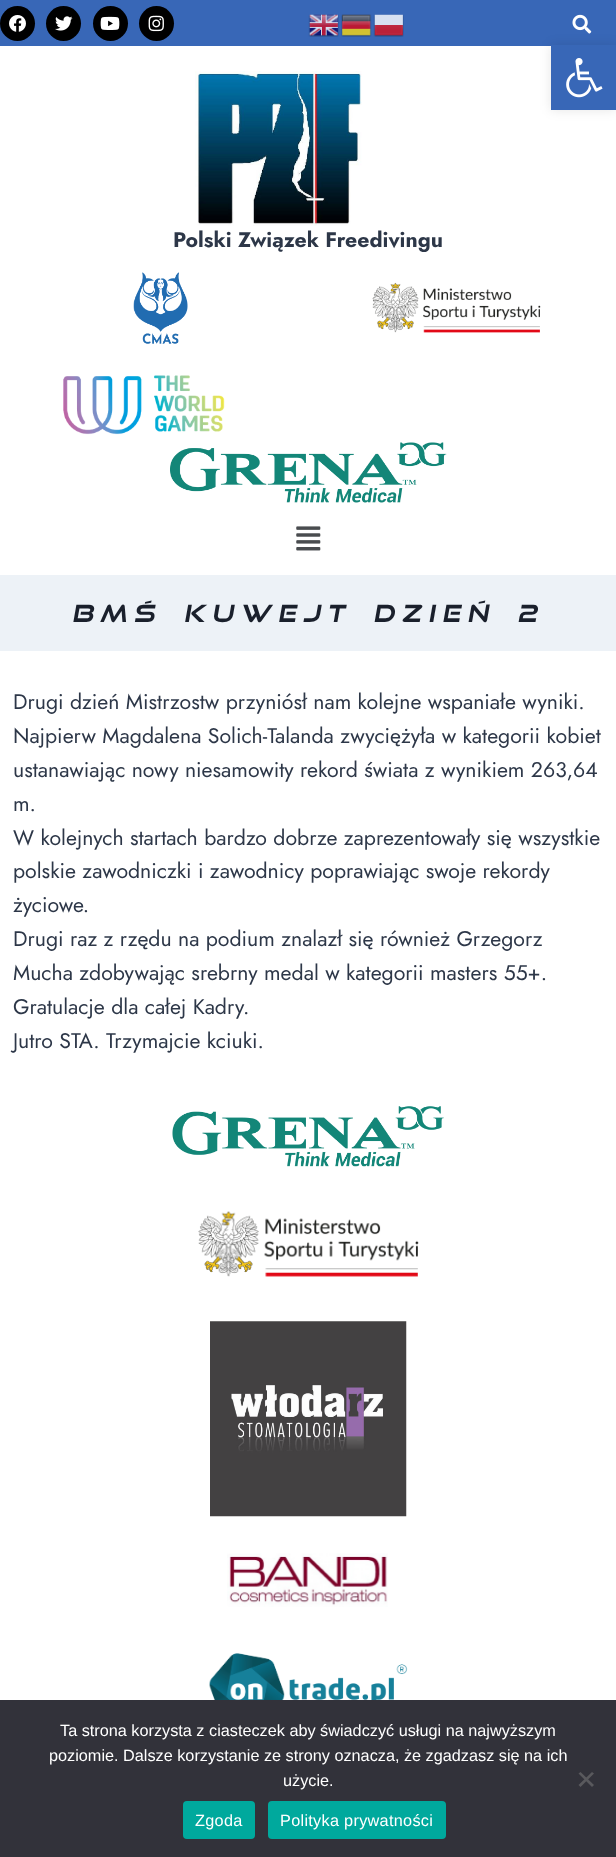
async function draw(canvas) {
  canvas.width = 616
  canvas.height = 1857
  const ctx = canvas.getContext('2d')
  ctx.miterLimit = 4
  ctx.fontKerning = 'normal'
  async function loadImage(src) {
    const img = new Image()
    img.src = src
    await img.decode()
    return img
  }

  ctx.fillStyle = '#fff'
  ctx.fillRect(0, 0, 616, 1857)
  ctx.fillStyle = '#3867b7'
  ctx.fillRect(0, 0, 616, 46)
  ctx.drawImage(await loadImage('image8.png'), 572, 14, 20, 20)
  ctx.fillStyle = '#0000001a'
  ctx.filter = 'blur(6px)'
  ctx.beginPath()
  ctx.rect(551, 45, 65, 65)
  ctx.fill()
  ctx.filter = 'none'
  ctx.fillStyle = '#3867b7'
  ctx.fillRect(551, 45, 65, 65)
  ctx.drawImage(await loadImage('image0.png'), 566, 58, 37, 40)
  ctx.fillStyle = '#000'
  ctx.beginPath()
  ctx.arc(17.5, 23.5, 17.5, 0, 2 * Math.PI)
  ctx.fill()
  ctx.drawImage(await loadImage('image1.png'), 9, 15, 17, 17)
  ctx.beginPath()
  ctx.arc(63.5, 23.5, 17.5, 0, 2 * Math.PI)
  ctx.fill()
  ctx.drawImage(await loadImage('image2.png'), 55, 16, 18, 15)
  ctx.beginPath()
  ctx.arc(110.5, 23.5, 17.5, 0, 2 * Math.PI)
  ctx.fill()
  ctx.drawImage(await loadImage('image3.png'), 100, 16, 20, 14)
  ctx.beginPath()
  ctx.arc(156.5, 23.5, 17.5, 0, 2 * Math.PI)
  ctx.fill()
  ctx.drawImage(await loadImage('image4.png'), 148, 15, 16, 17)
  ctx.drawImage(await loadImage('image5.png'), 308, 14, 31, 23)
  ctx.drawImage(await loadImage('image6.png'), 341, 14, 31, 23)
  ctx.drawImage(await loadImage('image7.png'), 373, 14, 31, 23)
  ctx.drawImage(await loadImage('image9.png'), 195, 71, 167, 155)
  ctx.font = 'bold 21.25px Jost'
  ctx.fillStyle = '#2d3748'
  ctx.fillText('Polski Związek Freedivingu', 173, 247)
  ctx.drawImage(await loadImage('image10.png'), 133, 272, 55, 72)
  ctx.drawImage(await loadImage('image11.png'), 372, 282, 169, 51)
  ctx.drawImage(await loadImage('image12.png'), 63, 375, 162, 60)
  ctx.drawImage(await loadImage('image13.png'), 170, 442, 277, 61)
  ctx.drawImage(await loadImage('image14.png'), 296, 526, 25, 25)
  ctx.fillStyle = '#edf2f7'
  ctx.fillRect(0, 575, 616, 76)
  ctx.letterSpacing = '7.25px'
  ctx.wordSpacing = '7.5px'
  ctx.font = 'italic bold 23.75px "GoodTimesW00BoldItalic"'
  ctx.fillStyle = '#1a202c'
  ctx.fillText('BMŚ Kuwejt Dzień 2', 72, 622)
  ctx.letterSpacing = '0px'
  ctx.wordSpacing = '0px'
  ctx.font = '21.25px Jost'
  ctx.fillStyle = '#2d3748'
  ctx.fillText('Drugi dzień Mistrzostw przyniósł nam kolejne wspaniałe wyniki.', 13, 709)
  ctx.fillText('Najpierw Magdalena Solich-Talanda zwyciężyła w kategorii kobiet', 13, 743)
  ctx.fillText('ustanawiając nowy niesamowity rekord świata z wynikiem 263,64', 13, 777)
  ctx.fillText('m.', 13, 811)
  ctx.fillText('W kolejnych startach bardzo dobrze zaprezentowały się wszystkie', 13, 845)
  ctx.fillText('polskie zawodniczki i zawodnicy poprawiając swoje rekordy', 13, 878)
  ctx.fillText('życiowe.', 13, 912)
  ctx.fillText('Drugi raz z rzędu na podium znalazł się również Grzegorz', 13, 946)
  ctx.fillText('Mucha zdobywając srebrny medal w kategorii masters 55+.', 13, 980)
  ctx.fillText('Gratulacje dla całej Kadry.', 13, 1014)
  ctx.fillText('Jutro STA. Trzymajcie kciuki.', 13, 1048)
  ctx.drawImage(await loadImage('image15.png'), 172, 1106, 272, 61)
  ctx.drawImage(await loadImage('image16.png'), 198, 1211, 221, 66)
  ctx.drawImage(await loadImage('image17.png'), 210, 1321, 197, 196)
  ctx.drawImage(await loadImage('image18.png'), 227, 1553, 161, 54)
  ctx.drawImage(await loadImage('image19.png'), 209, 1653, 199, 47)
  ctx.fillStyle = '#32323a'
  ctx.fillRect(0, 1700, 616, 157)
  ctx.font = '16.25px Liberation Sans'
  ctx.fillStyle = '#fff'
  ctx.fillText('Ta strona korzysta z ciasteczek aby świadczyć usługi na najwyższym', 60, 1736)
  ctx.fillText('poziomie. Dalsze korzystanie ze strony oznacza, że zgadzasz się na ich', 49, 1761)
  ctx.fillText('użycie.', 283, 1786)
  ctx.fillStyle = '#59595d'
  ctx.beginPath()
  ctx.moveTo(592, 1772)
  ctx.lineTo(594, 1773.5)
  ctx.lineTo(580.5, 1787)
  ctx.lineTo(578.5, 1785)
  ctx.closePath()
  ctx.fill()
  ctx.beginPath()
  ctx.moveTo(578.5, 1773.5)
  ctx.lineTo(580.5, 1772)
  ctx.lineTo(594, 1785)
  ctx.lineTo(592, 1787)
  ctx.closePath()
  ctx.fill()
  ctx.fillStyle = '#00a99d'
  ctx.beginPath()
  ctx.roundRect(183, 1801, 72, 38, 4)
  ctx.fill()
  ctx.letterSpacing = '0.3px'
  ctx.fillStyle = '#fff'
  ctx.fillText('Zgoda', 195, 1826)
  ctx.fillStyle = '#00a99d'
  ctx.beginPath()
  ctx.roundRect(268, 1801, 178, 38, 4)
  ctx.fill()
  ctx.fillStyle = '#fff'
  ctx.fillText('Polityka prywatności', 280, 1826)
}

draw(document.querySelector('canvas'))
